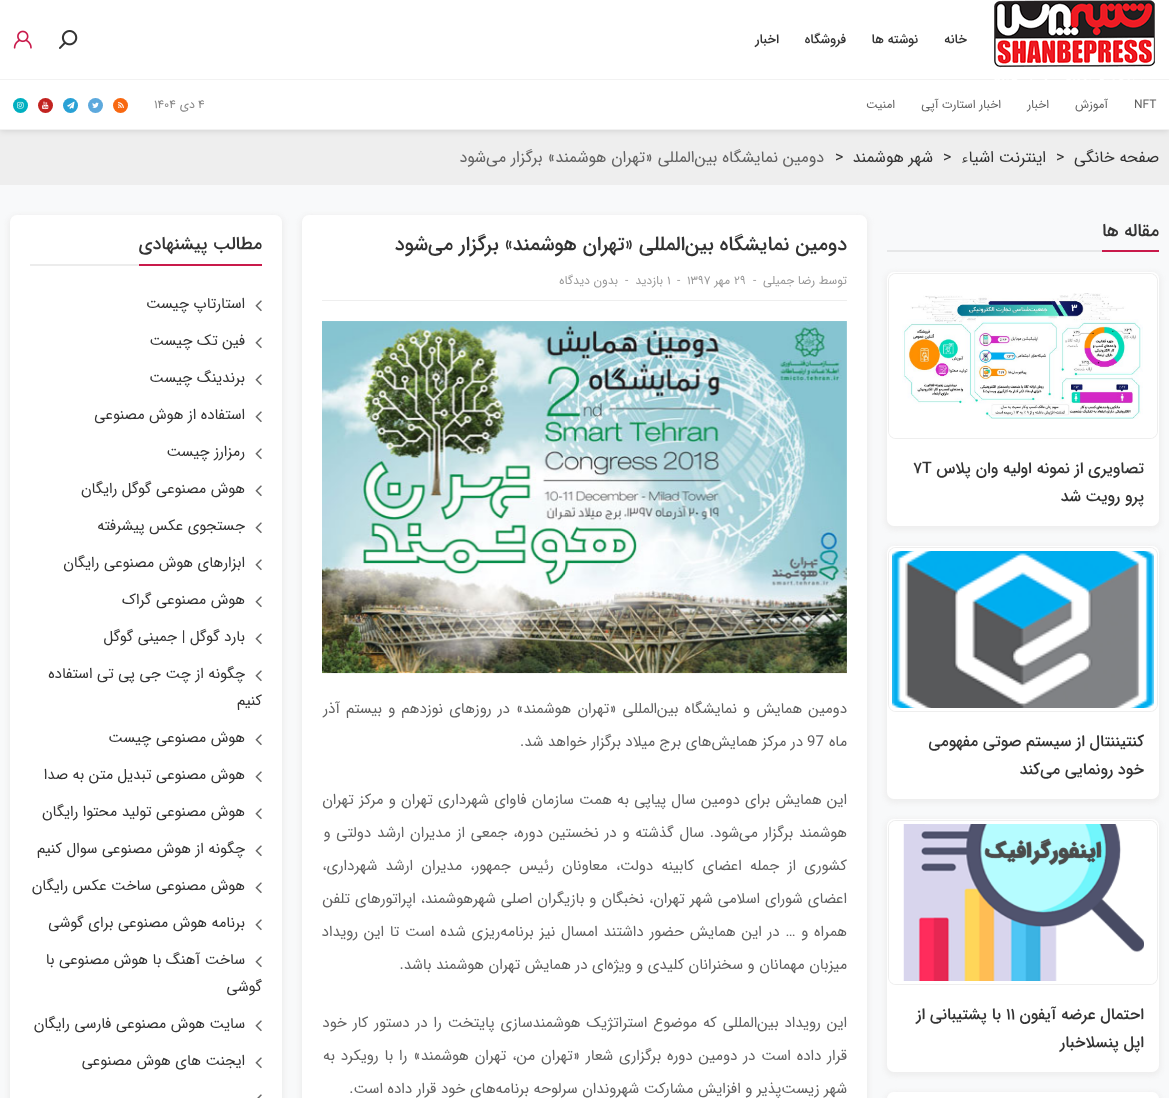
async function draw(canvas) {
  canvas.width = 1169
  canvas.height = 1098
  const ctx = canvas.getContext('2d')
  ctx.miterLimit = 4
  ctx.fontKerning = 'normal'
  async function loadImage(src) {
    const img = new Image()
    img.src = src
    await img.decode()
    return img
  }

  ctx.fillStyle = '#f8f9fa'
  ctx.fillRect(0, 0, 1169, 1098)
  ctx.fillStyle = '#eee'
  ctx.fillRect(0, 130, 1169, 55)
  ctx.fillStyle = '#00000026'
  ctx.filter = 'blur(3.5px)'
  ctx.beginPath()
  ctx.rect(0, 0, 1169, 130)
  ctx.fill()
  ctx.filter = 'none'
  ctx.fillStyle = '#fff'
  ctx.fillRect(0, 0, 1169, 79)
  ctx.fillStyle = '#f2f2f2'
  ctx.fillRect(0, 79, 1169, 1)
  ctx.drawImage(await loadImage('image0.png'), 994, 0, 161, 80)
  ctx.direction = 'rtl'
  ctx.font = '500 13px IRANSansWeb'
  ctx.fillStyle = '#333'
  ctx.fillText('خانه', 967, 43)
  ctx.fillText('نوشته ها', 918, 43)
  ctx.fillText('فروشگاه', 846, 43)
  ctx.fillText('اخبار', 779, 43)
  ctx.drawImage(await loadImage('image1.png'), 59, 30, 19, 19)
  ctx.drawImage(await loadImage('image2.png'), 13, 30, 19, 19)
  ctx.fillStyle = '#fff'
  ctx.fillRect(0, 80, 1169, 49)
  ctx.fillStyle = '#f2f2f2'
  ctx.fillRect(0, 129, 1169, 1)
  ctx.direction = 'ltr'
  ctx.font = '12px IRANSansWeb'
  ctx.fillStyle = '#626262'
  ctx.fillText('NFT', 1134, 108)
  ctx.direction = 'rtl'
  ctx.fillText('آموزش', 1108, 108)
  ctx.fillText('اخبار', 1049, 108)
  ctx.fillText('اخبار استارت آپی', 1001, 108)
  ctx.fillText('امنیت', 895, 108)
  ctx.direction = 'ltr'
  ctx.fillStyle = '#858585'
  ctx.fillText('۴', 198, 108)
  ctx.direction = 'rtl'
  ctx.fillText('دی', 195, 108)
  ctx.direction = 'ltr'
  ctx.fillText('۱۴۰۴', 154, 108)
  ctx.fillStyle = '#f86811'
  ctx.beginPath()
  ctx.arc(120.5, 105.5, 7.5, 0, 2 * Math.PI)
  ctx.fill()
  ctx.drawImage(await loadImage('image3.png'), 118, 102, 6, 6)
  ctx.fillStyle = '#5da9dd'
  ctx.beginPath()
  ctx.arc(95.5, 105.5, 7.5, 0, 2 * Math.PI)
  ctx.fill()
  ctx.drawImage(await loadImage('image4.png'), 92, 102, 7, 6)
  ctx.fillStyle = '#29a1d5'
  ctx.beginPath()
  ctx.arc(70.5, 105.5, 7.5, 0, 2 * Math.PI)
  ctx.fill()
  ctx.drawImage(await loadImage('image5.png'), 67, 101, 8, 8)
  ctx.fillStyle = '#c22320'
  ctx.beginPath()
  ctx.arc(45.5, 105.5, 7.5, 0, 2 * Math.PI)
  ctx.fill()
  ctx.drawImage(await loadImage('image6.png'), 42, 101, 7, 9)
  ctx.fillStyle = '#00afc0'
  ctx.beginPath()
  ctx.arc(20.5, 105.5, 7.5, 0, 2 * Math.PI)
  ctx.fill()
  ctx.drawImage(await loadImage('image7.png'), 17, 101, 7, 8)
  ctx.direction = 'rtl'
  ctx.font = '16px IRANSansWeb'
  ctx.fillStyle = '#333'
  ctx.fillText('صفحه خانگی', 1159, 162)
  ctx.direction = 'ltr'
  ctx.fillText('>', 1056, 162)
  ctx.direction = 'rtl'
  ctx.fillText('اینترنت اشیاء', 1046, 162)
  ctx.direction = 'ltr'
  ctx.fillText('>', 943, 162)
  ctx.direction = 'rtl'
  ctx.fillText('شهر هوشمند', 933, 162)
  ctx.direction = 'ltr'
  ctx.fillText('>', 835, 162)
  ctx.direction = 'rtl'
  ctx.fillStyle = '#626262'
  ctx.fillText('دومین نمایشگاه بین‌المللی «تهران هوشمند» برگزار می‌شود', 824, 162)
  ctx.fillStyle = '#c91a4b'
  ctx.fillRect(1102, 250, 57, 2)
  ctx.font = '500 18px IRANSansWeb'
  ctx.fillStyle = '#333'
  ctx.fillText('مقاله ها', 1159, 236)
  ctx.fillStyle = '#e6e7e8'
  ctx.fillRect(887, 250, 215, 2)
  ctx.fillStyle = '#eee'
  ctx.filter = 'blur(2.5px)'
  ctx.beginPath()
  ctx.roundRect(885, 272, 276, 258, 9)
  ctx.fill()
  ctx.filter = 'none'
  ctx.fillStyle = '#fff'
  ctx.beginPath()
  ctx.roundRect(887, 272, 272, 254, 7)
  ctx.fill()
  ctx.save()
  ctx.beginPath()
  ctx.moveTo(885, 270)
  ctx.lineTo(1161, 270)
  ctx.lineTo(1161, 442)
  ctx.lineTo(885, 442)
  ctx.closePath()
  ctx.moveTo(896, 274)
  ctx.lineTo(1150, 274)
  ctx.bezierCurveTo(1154, 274, 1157, 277, 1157, 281)
  ctx.lineTo(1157, 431)
  ctx.bezierCurveTo(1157, 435, 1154, 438, 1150, 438)
  ctx.lineTo(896, 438)
  ctx.bezierCurveTo(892, 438, 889, 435, 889, 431)
  ctx.lineTo(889, 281)
  ctx.bezierCurveTo(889, 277, 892, 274, 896, 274)
  ctx.closePath()
  ctx.clip('evenodd')
  ctx.fillStyle = '#eee'
  ctx.filter = 'blur(0.5px)'
  ctx.beginPath()
  ctx.roundRect(888, 273, 270, 166, 8)
  ctx.fill()
  ctx.filter = 'none'
  ctx.restore()
  ctx.beginPath()
  ctx.roundRect(890.5, 275.5, 265, 161, 5.5)
  ctx.strokeStyle = '#fff'
  ctx.lineWidth = 3
  ctx.stroke()
  ctx.drawImage(await loadImage('image8.png'), 902, 293, 241, 126)
  ctx.font = '500 16px IRANSansWeb'
  ctx.fillStyle = '#333'
  ctx.fillText('تصاویری از نمونه اولیه وان پلاس', 1144, 473)
  ctx.direction = 'ltr'
  ctx.fillText('۷T', 913, 473)
  ctx.direction = 'rtl'
  ctx.fillText('پرو رویت شد', 1144, 501)
  ctx.fillStyle = '#eee'
  ctx.filter = 'blur(2.5px)'
  ctx.beginPath()
  ctx.roundRect(885, 546, 276, 257, 9)
  ctx.fill()
  ctx.filter = 'none'
  ctx.fillStyle = '#fff'
  ctx.beginPath()
  ctx.roundRect(887, 546, 272, 253, 7)
  ctx.fill()
  ctx.save()
  ctx.beginPath()
  ctx.moveTo(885, 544)
  ctx.lineTo(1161, 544)
  ctx.lineTo(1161, 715)
  ctx.lineTo(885, 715)
  ctx.closePath()
  ctx.moveTo(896, 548)
  ctx.lineTo(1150, 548)
  ctx.bezierCurveTo(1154, 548, 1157, 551, 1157, 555)
  ctx.lineTo(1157, 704)
  ctx.bezierCurveTo(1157, 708, 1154, 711, 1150, 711)
  ctx.lineTo(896, 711)
  ctx.bezierCurveTo(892, 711, 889, 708, 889, 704)
  ctx.lineTo(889, 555)
  ctx.bezierCurveTo(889, 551, 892, 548, 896, 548)
  ctx.closePath()
  ctx.clip('evenodd')
  ctx.fillStyle = '#eee'
  ctx.filter = 'blur(0.5px)'
  ctx.beginPath()
  ctx.roundRect(888, 547, 270, 165, 8)
  ctx.fill()
  ctx.filter = 'none'
  ctx.restore()
  ctx.beginPath()
  ctx.roundRect(890.5, 549.5, 265, 160, 5.5)
  ctx.stroke()
  ctx.drawImage(await loadImage('image9.png'), 892, 551, 262, 157)
  ctx.fillStyle = '#333'
  ctx.fillText('کنتیننتال از سیستم صوتی مفهومی', 1144, 746)
  ctx.fillText('خود رونمایی می‌کند', 1144, 774)
  ctx.fillStyle = '#eee'
  ctx.filter = 'blur(2.5px)'
  ctx.beginPath()
  ctx.roundRect(885, 819, 276, 257, 9)
  ctx.fill()
  ctx.filter = 'none'
  ctx.fillStyle = '#fff'
  ctx.beginPath()
  ctx.roundRect(887, 819, 272, 253, 7)
  ctx.fill()
  ctx.save()
  ctx.beginPath()
  ctx.moveTo(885, 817)
  ctx.lineTo(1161, 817)
  ctx.lineTo(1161, 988)
  ctx.lineTo(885, 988)
  ctx.closePath()
  ctx.moveTo(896, 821)
  ctx.lineTo(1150, 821)
  ctx.bezierCurveTo(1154, 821, 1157, 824, 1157, 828)
  ctx.lineTo(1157, 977)
  ctx.bezierCurveTo(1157, 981, 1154, 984, 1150, 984)
  ctx.lineTo(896, 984)
  ctx.bezierCurveTo(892, 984, 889, 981, 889, 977)
  ctx.lineTo(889, 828)
  ctx.bezierCurveTo(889, 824, 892, 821, 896, 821)
  ctx.closePath()
  ctx.clip('evenodd')
  ctx.fillStyle = '#eee'
  ctx.filter = 'blur(0.5px)'
  ctx.beginPath()
  ctx.roundRect(888, 820, 270, 165, 8)
  ctx.fill()
  ctx.filter = 'none'
  ctx.restore()
  ctx.beginPath()
  ctx.roundRect(890.5, 822.5, 265, 160, 5.5)
  ctx.stroke()
  ctx.drawImage(await loadImage('image10.png'), 903, 824, 241, 157)
  ctx.fillStyle = '#333'
  ctx.fillText('احتمال عرضه آیفون', 1144, 1019)
  ctx.direction = 'ltr'
  ctx.fillText('۱۱', 1006, 1019)
  ctx.direction = 'rtl'
  ctx.fillText('با پشتیبانی از', 1001, 1019)
  ctx.fillText('اپل پنسلاخبار', 1144, 1047)
  ctx.fillStyle = '#eee'
  ctx.filter = 'blur(2.5px)'
  ctx.beginPath()
  ctx.roundRect(885, 1092, 276, 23, 9)
  ctx.fill()
  ctx.filter = 'none'
  ctx.fillStyle = '#fff'
  ctx.beginPath()
  ctx.roundRect(887, 1092, 272, 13, 7)
  ctx.fill()
  ctx.fillStyle = '#eee'
  ctx.filter = 'blur(2.5px)'
  ctx.beginPath()
  ctx.roundRect(300, 215, 569, 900, 9)
  ctx.fill()
  ctx.filter = 'none'
  ctx.fillStyle = '#fff'
  ctx.beginPath()
  ctx.roundRect(302, 215, 565, 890, 7)
  ctx.fill()
  ctx.fillStyle = '#eee'
  ctx.fillRect(322, 300, 525, 1)
  ctx.font = '500 20px IRANSansWeb'
  ctx.fillStyle = '#333'
  ctx.fillText('دومین نمایشگاه بین‌المللی «تهران هوشمند» برگزار می‌شود', 847, 250)
  ctx.font = '12px IRANSansWeb'
  ctx.fillStyle = '#999'
  ctx.fillText('توسط', 847, 284)
  ctx.fillText('رضا جميلی', 815, 284)
  ctx.direction = 'ltr'
  ctx.fillText('-', 753, 284)
  ctx.fillText('۲۹', 734, 284)
  ctx.direction = 'rtl'
  ctx.fillText('مهر', 730, 284)
  ctx.direction = 'ltr'
  ctx.fillText('۱۳۹۷', 687, 284)
  ctx.fillText('-', 677, 284)
  ctx.fillText('۱', 667, 284)
  ctx.direction = 'rtl'
  ctx.fillText('بازدید', 663, 284)
  ctx.direction = 'ltr'
  ctx.fillText('-', 625, 284)
  ctx.direction = 'rtl'
  ctx.fillText('بدون دیدگاه', 618, 284)
  ctx.drawImage(await loadImage('image11.png'), 322, 321, 525, 353)
  ctx.wordSpacing = '1.6px'
  ctx.font = '15px IRANSansWeb'
  ctx.fillStyle = '#626262'
  ctx.fillText('دومین همایش و نمایشگاه بین‌المللی «تهران هوشمند» در روزهای نوزدهم و بیستم آذر', 847, 713)
  ctx.wordSpacing = '0px'
  ctx.fillText('ماه', 847, 746)
  ctx.direction = 'ltr'
  ctx.fillText('97', 807, 746)
  ctx.direction = 'rtl'
  ctx.fillText('در مرکز همایش‌های برج میلاد برگزار خواهد شد.', 803, 746)
  ctx.wordSpacing = '0.75px'
  ctx.fillText('این همایش برای دومین سال پیاپی به همت سازمان فاوای شهرداری تهران و مرکز تهران', 847, 804)
  ctx.wordSpacing = '1.25px'
  ctx.fillText('هوشمند برگزار می‌شود. سال گذشته و در نخستین دوره، جمعی از مدیران ارشد دولتی و', 847, 837)
  ctx.wordSpacing = '3.75px'
  ctx.fillText('کشوری از جمله اعضای کابینه دولت، معاونان رئیس جمهور، ‌مدیران ارشد شهرداری،', 847, 870)
  ctx.wordSpacing = '0.5px'
  ctx.fillText('اعضای شورای اسلامی شهر تهران، نخبگان و بازیگران اصلی شهرهوشمند، اپراتورهای تلفن', 847, 903)
  ctx.wordSpacing = '1.25px'
  ctx.fillText('همراه و … در این همایش حضور داشتند امسال نیز برنامه‌ریزی شده است تا این رویداد', 847, 936)
  ctx.wordSpacing = '0px'
  ctx.fillText('میزبان مهمانان و سخنرانان کلیدی و ویژه‌ای در همایش تهران هوشمند باشد.', 847, 969)
  ctx.wordSpacing = '1.4px'
  ctx.fillText('این رویداد بین‌المللی که موضوع استراتژیک هوشمندسازی پایتخت را در دستور کار خود', 847, 1027)
  ctx.fillText('قرار داده است در دومین دوره برگزاری شعار «تهران من، تهران هوشمند» را با رویکرد به', 847, 1060)
  ctx.wordSpacing = '0px'
  ctx.fillText('شهر زیست‌پذیر و افزایش مشارکت شهروندان سرلوحه برنامه‌های خود قرار داده است.', 847, 1093)
  ctx.fillStyle = '#eee'
  ctx.filter = 'blur(2.5px)'
  ctx.beginPath()
  ctx.roundRect(8, 215, 276, 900, 9)
  ctx.fill()
  ctx.filter = 'none'
  ctx.fillStyle = '#fff'
  ctx.beginPath()
  ctx.roundRect(10, 215, 272, 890, 7)
  ctx.fill()
  ctx.fillStyle = '#c91a4b'
  ctx.fillRect(139, 264, 123, 2)
  ctx.font = '500 18px IRANSansWeb'
  ctx.fillStyle = '#333'
  ctx.fillText('مطالب پیشنهادی', 262, 249)
  ctx.fillStyle = '#ececec'
  ctx.fillRect(30, 264, 109, 2)
  ctx.drawImage(await loadImage('image12.png'), 255, 300, 7, 12)
  ctx.font = '15px IRANSansWeb'
  ctx.fillStyle = '#333'
  ctx.fillText('استارتاپ چیست', 245, 308)
  ctx.drawImage(await loadImage('image12.png'), 255, 337, 7, 12)
  ctx.fillText('فین تک چیست', 245, 345)
  ctx.drawImage(await loadImage('image12.png'), 255, 374, 7, 12)
  ctx.fillText('برندینگ چیست', 245, 382)
  ctx.drawImage(await loadImage('image12.png'), 255, 411, 7, 12)
  ctx.fillText('استفاده از هوش مصنوعی', 245, 419)
  ctx.drawImage(await loadImage('image12.png'), 255, 448, 7, 12)
  ctx.fillText('رمزارز چیست', 245, 456)
  ctx.drawImage(await loadImage('image12.png'), 255, 485, 7, 12)
  ctx.fillText('هوش مصنوعی گوگل رایگان', 245, 493)
  ctx.drawImage(await loadImage('image12.png'), 255, 522, 7, 12)
  ctx.fillText('جستجوی عکس پیشرفته', 245, 530)
  ctx.drawImage(await loadImage('image12.png'), 255, 559, 7, 12)
  ctx.fillText('ابزارهای هوش مصنوعی رایگان', 245, 567)
  ctx.drawImage(await loadImage('image12.png'), 255, 596, 7, 12)
  ctx.fillText('هوش مصنوعی گراک', 245, 604)
  ctx.drawImage(await loadImage('image12.png'), 255, 633, 7, 12)
  ctx.fillText('بارد گوگل | جمینی گوگل', 245, 641)
  ctx.drawImage(await loadImage('image12.png'), 255, 670, 7, 12)
  ctx.fillText('چگونه از چت جی پی تی استفاده', 245, 678)
  ctx.fillText('کنیم', 262, 705)
  ctx.drawImage(await loadImage('image12.png'), 255, 734, 7, 12)
  ctx.fillText('هوش مصنوعی چیست', 245, 742)
  ctx.drawImage(await loadImage('image12.png'), 255, 771, 7, 12)
  ctx.fillText('هوش مصنوعی تبدیل متن به صدا', 245, 779)
  ctx.drawImage(await loadImage('image12.png'), 255, 808, 7, 12)
  ctx.fillText('هوش مصنوعی تولید محتوا رایگان', 245, 816)
  ctx.drawImage(await loadImage('image12.png'), 255, 845, 7, 12)
  ctx.fillText('چگونه از هوش مصنوعی سوال کنیم', 245, 853)
  ctx.drawImage(await loadImage('image12.png'), 255, 882, 7, 12)
  ctx.fillText('هوش مصنوعی ساخت عکس رایگان', 245, 890)
  ctx.drawImage(await loadImage('image12.png'), 255, 919, 7, 12)
  ctx.fillText('برنامه هوش مصنوعی برای گوشی', 245, 927)
  ctx.drawImage(await loadImage('image12.png'), 255, 956, 7, 12)
  ctx.fillText('ساخت آهنگ با هوش مصنوعی با', 245, 964)
  ctx.fillText('گوشی', 262, 991)
  ctx.drawImage(await loadImage('image12.png'), 255, 1020, 7, 12)
  ctx.fillText('سایت هوش مصنوعی فارسی رایگان', 245, 1028)
  ctx.drawImage(await loadImage('image12.png'), 255, 1057, 7, 12)
  ctx.fillText('ایجنت های هوش مصنوعی', 245, 1065)
  ctx.drawImage(await loadImage('image13.png'), 257, 1094, 5, 4)
}

draw(document.querySelector('canvas'))
